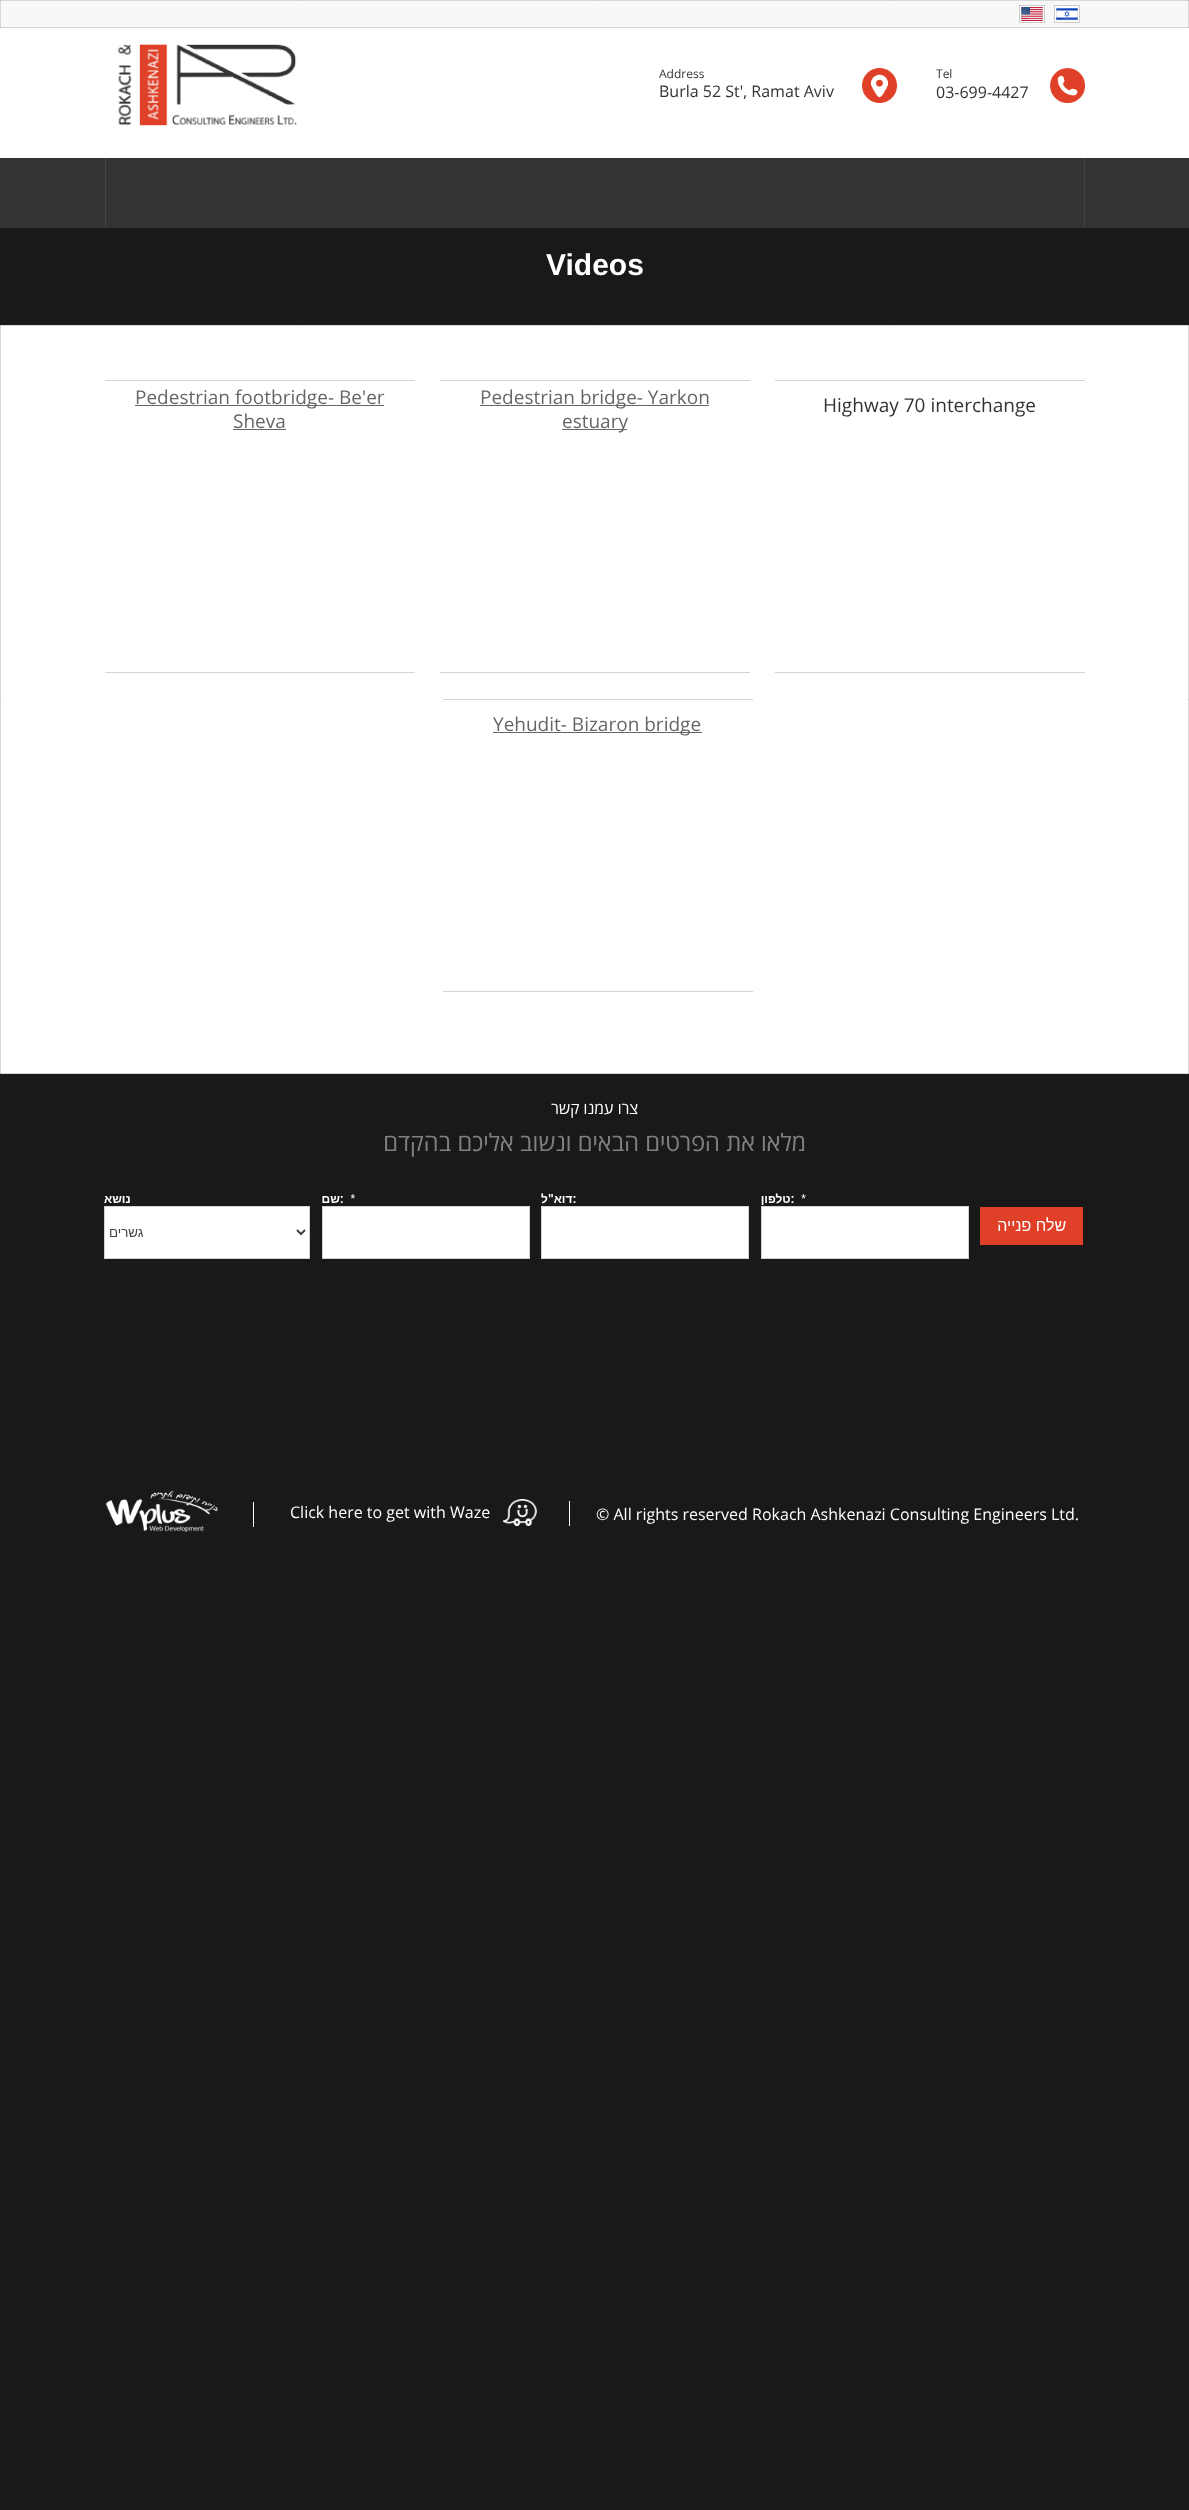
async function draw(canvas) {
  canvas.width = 1189
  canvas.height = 2510
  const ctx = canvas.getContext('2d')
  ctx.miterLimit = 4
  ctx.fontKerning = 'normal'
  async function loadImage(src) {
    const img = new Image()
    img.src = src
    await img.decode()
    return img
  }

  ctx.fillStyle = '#191919'
  ctx.fillRect(0, 0, 1189, 2510)
  ctx.fillStyle = '#f8f8f8'
  ctx.beginPath()
  ctx.rect(0.5, 0.5, 1188, 27)
  ctx.fill()
  ctx.strokeStyle = '#d9d9d9'
  ctx.stroke()
  ctx.drawImage(await loadImage('image0.png'), 1019, 5, 26, 18)
  ctx.drawImage(await loadImage('image1.png'), 1054, 5, 26, 18)
  ctx.fillStyle = '#fff'
  ctx.fillRect(0, 28, 1189, 130)
  ctx.drawImage(await loadImage('image2.png'), 117, 44, 180, 82)
  ctx.font = '12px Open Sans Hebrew'
  ctx.fillStyle = '#333'
  ctx.fillText('Address', 659, 78)
  ctx.font = '16px Open Sans Hebrew'
  ctx.fillText('Burla 52 St\', Ramat Aviv', 659, 97)
  ctx.drawImage(await loadImage('image3.png'), 862, 68, 35, 35)
  ctx.font = '12px Open Sans Hebrew'
  ctx.fillText('Tel', 936, 78)
  ctx.font = '16px Open Sans Hebrew'
  ctx.fillText('03-699-4427', 936, 98)
  ctx.drawImage(await loadImage('image4.png'), 1050, 68, 35, 35)
  ctx.fillRect(0, 158, 1189, 70)
  ctx.fillStyle = '#434343'
  ctx.fillRect(105, 158, 1, 70)
  ctx.fillRect(1084, 158, 1, 70)
  ctx.font = 'bold 30px Liberation Sans'
  ctx.fillStyle = '#fff'
  ctx.fillText('Videos', 546, 275)
  ctx.beginPath()
  ctx.rect(0.5, 325.5, 1188, 748)
  ctx.fill()
  ctx.stroke()
  ctx.fillStyle = '#d3d3d3'
  ctx.fillRect(105, 380, 310, 1)
  ctx.fillRect(105, 672, 310, 1)
  ctx.fillStyle = '#666'
  ctx.fillRect(135, 405, 249, 1)
  ctx.font = '19px Open Sans Hebrew'
  ctx.fillText('Pedestrian footbridge- Be\'er', 135, 404)
  ctx.fillText('Sheva', 233, 428)
  ctx.fillRect(233, 429, 53, 1)
  ctx.fillStyle = '#d3d3d3'
  ctx.fillRect(440, 380, 310, 1)
  ctx.fillRect(440, 672, 310, 1)
  ctx.fillStyle = '#666'
  ctx.fillRect(480, 405, 229, 1)
  ctx.fillText('Pedestrian bridge- Yarkon', 480, 404)
  ctx.fillRect(562, 429, 65, 1)
  ctx.fillText('estuary', 562, 428)
  ctx.fillStyle = '#d3d3d3'
  ctx.fillRect(775, 380, 310, 1)
  ctx.fillRect(775, 672, 310, 1)
  ctx.fillStyle = '#333'
  ctx.fillText('Highway 70 interchange', 823, 412)
  ctx.fillStyle = '#d3d3d3'
  ctx.fillRect(443, 699, 310, 1)
  ctx.fillRect(443, 991, 310, 1)
  ctx.fillStyle = '#666'
  ctx.fillRect(493, 732, 209, 1)
  ctx.fillText('Yehudit- Bizaron bridge', 493, 731)
  ctx.direction = 'rtl'
  ctx.font = '16px Open Sans Hebrew'
  ctx.fillStyle = '#fff'
  ctx.fillText('צרו עמנו קשר', 638, 1114)
  ctx.font = '24px Open Sans Hebrew'
  ctx.fillStyle = '#808080'
  ctx.fillText('מלאו את הפרטים הבאים ונשוב אליכם בהקדם', 806, 1151)
  ctx.drawImage(await loadImage('image5.png'), 104, 1193, 979, 66)
  ctx.drawImage(await loadImage('image6.png'), 105, 1490, 113, 42)
  ctx.fillStyle = '#fff'
  ctx.fillRect(253, 1502, 1, 25)
  ctx.direction = 'ltr'
  ctx.font = '16px Open Sans Hebrew'
  ctx.fillText('Click here to get with Waze', 290, 1518)
  ctx.drawImage(await loadImage('image7.png'), 503, 1499, 34, 27)
  ctx.fillRect(569, 1501, 1, 25)
  ctx.fillText('© All rights reserved Rokach Ashkenazi Consulting Engineers Ltd.', 596, 1520)
}

draw(document.querySelector('canvas'))
